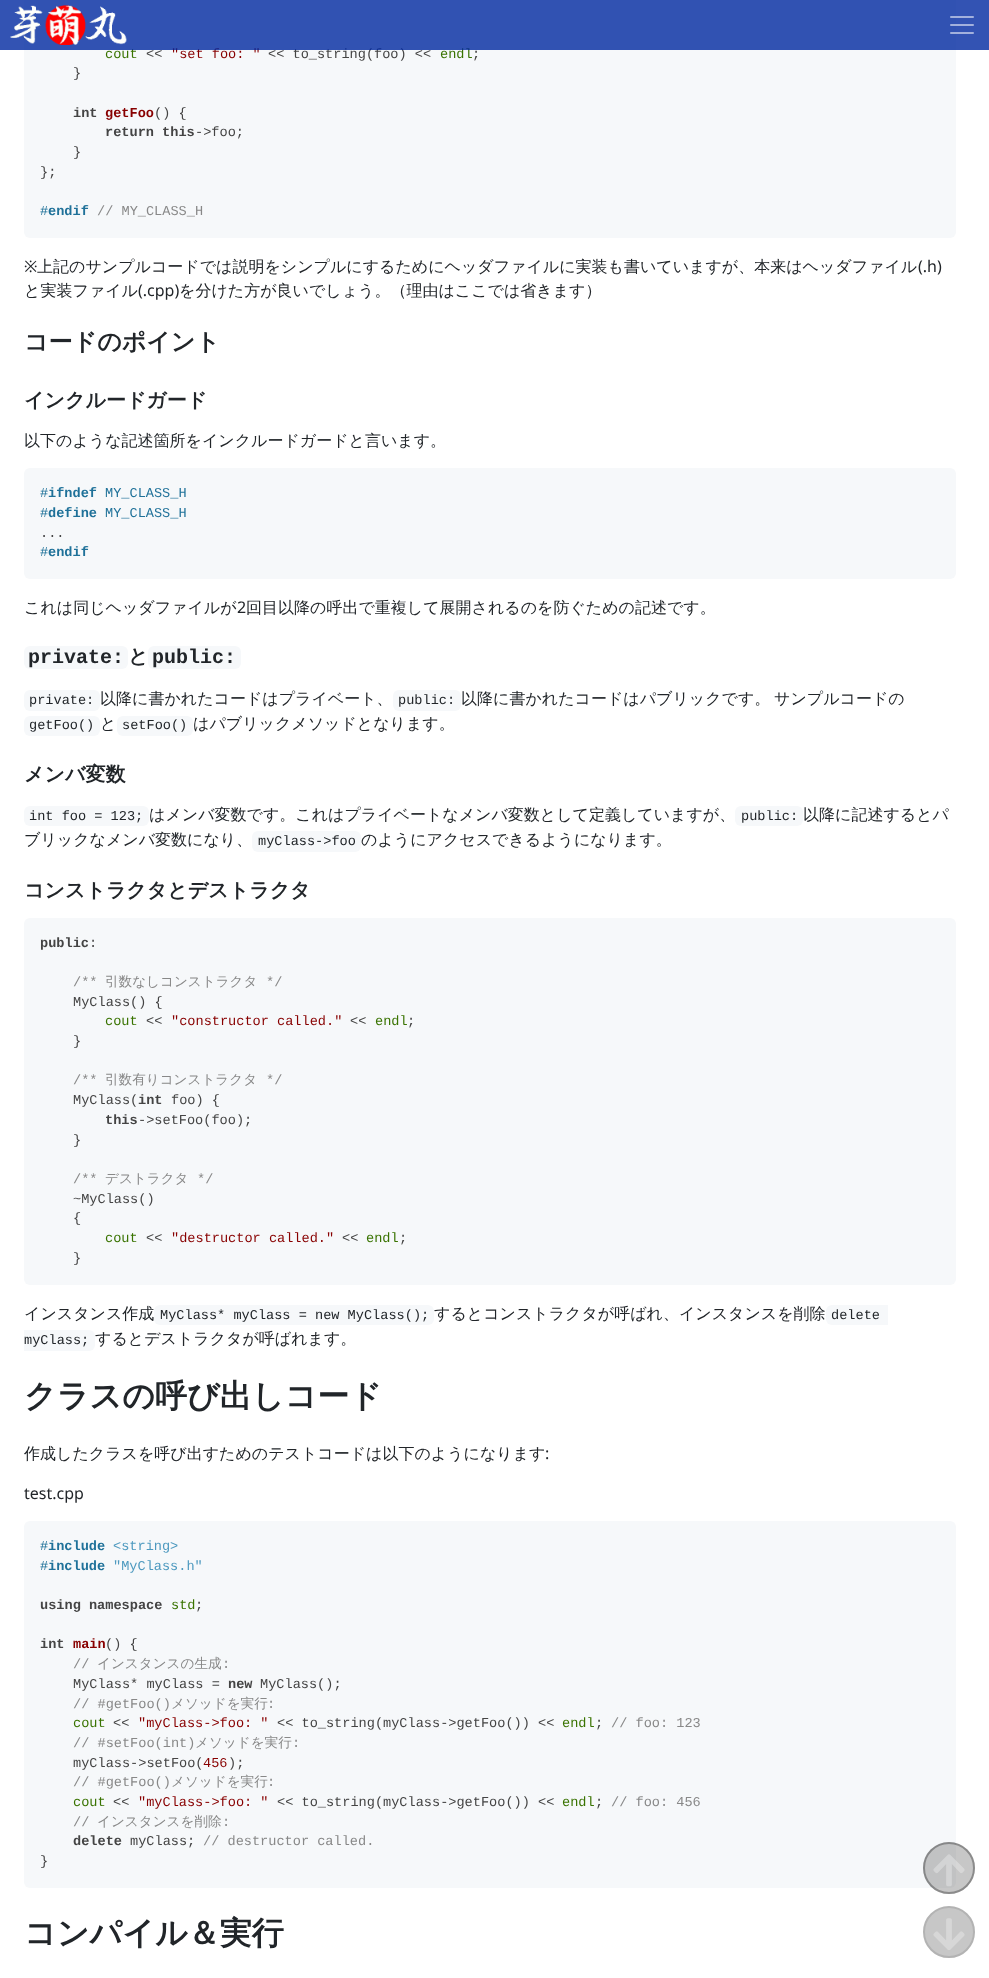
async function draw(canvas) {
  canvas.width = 989
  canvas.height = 1978
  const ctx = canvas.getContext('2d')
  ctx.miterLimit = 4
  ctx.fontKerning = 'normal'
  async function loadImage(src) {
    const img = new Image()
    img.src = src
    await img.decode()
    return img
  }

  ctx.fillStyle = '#fff'
  ctx.fillRect(0, 0, 989, 1978)
  ctx.fillStyle = '#f6f8fa'
  ctx.beginPath()
  ctx.roundRect(24, -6, 932, 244, 6)
  ctx.fill()
  ctx.font = '13.6px Liberation Mono'
  ctx.fillStyle = '#397300'
  ctx.fillText('cout', 105, 58)
  ctx.fillStyle = '#800'
  ctx.fillText('"set foo: "', 171, 58)
  ctx.fillStyle = '#444'
  ctx.fillText('<< to_string(foo) <<', 268, 58)
  ctx.fillStyle = '#397300'
  ctx.fillText('endl', 440, 58)
  ctx.fillStyle = '#0028a0cc'
  ctx.fillRect(0, 0, 989, 50)
  ctx.drawImage(await loadImage('image0.png'), 10, 5, 117, 40)
  ctx.drawImage(await loadImage('image1.png'), 950, 16, 24, 18)
  ctx.fillStyle = '#444'
  ctx.fillText('<<', 146, 58)
  ctx.fillText(';', 472, 58)
  ctx.fillText('}', 73, 77)
  ctx.font = 'bold 13.6px Liberation Mono'
  ctx.fillText('int', 73, 117)
  ctx.fillStyle = '#800'
  ctx.fillText('getFoo', 105, 117)
  ctx.font = '13.6px Liberation Mono'
  ctx.fillStyle = '#444'
  ctx.fillText('() {', 154, 117)
  ctx.font = 'bold 13.6px Liberation Mono'
  ctx.fillText('return this', 105, 136)
  ctx.font = '13.6px Liberation Mono'
  ctx.fillText('->foo;', 195, 136)
  ctx.fillText('}', 73, 156)
  ctx.fillText('};', 40, 176)
  ctx.fillStyle = '#1f7199'
  ctx.fillText('#', 40, 215)
  ctx.font = 'bold 13.6px Liberation Mono'
  ctx.fillText('endif', 48, 215)
  ctx.font = '13.6px Liberation Mono'
  ctx.fillStyle = '#888'
  ctx.fillText('// MY_CLASS_H', 97, 215)
  ctx.font = '16px Noto Sans'
  ctx.fillStyle = '#212529'
  ctx.fillText('※', 24, 272)
  ctx.font = '500 16px WenQuanYi Zen Hei'
  ctx.fillText('上記のサンプルコードでは説明をシンプルにするためにヘッダファイルに実装も書いていますが、本来はヘッダファイル', 37, 272)
  ctx.font = '16px Noto Sans'
  ctx.fillText('(.h)', 918, 272)
  ctx.font = '500 16px WenQuanYi Zen Hei'
  ctx.fillText('と実装ファイル', 24, 296)
  ctx.font = '16px Noto Sans'
  ctx.fillText('(.cpp)', 138, 296)
  ctx.font = '500 16px WenQuanYi Zen Hei'
  ctx.fillText('を分けた方が良いでしょう。（理由はここでは省きます）', 179, 296)
  ctx.font = 'bold 24px WenQuanYi Zen Hei'
  ctx.fillText('コードのポイント', 24, 350)
  ctx.font = 'bold 20px WenQuanYi Zen Hei'
  ctx.fillText('インクルードガード', 24, 407)
  ctx.font = '500 16px WenQuanYi Zen Hei'
  ctx.fillText('以下のような記述箇所をインクルードガードと言います。', 24, 446)
  ctx.fillStyle = '#f6f8fa'
  ctx.beginPath()
  ctx.roundRect(24, 468, 932, 111, 6)
  ctx.fill()
  ctx.font = '13.6px Liberation Mono'
  ctx.fillStyle = '#1f7199'
  ctx.fillText('#', 40, 497)
  ctx.font = 'bold 13.6px Liberation Mono'
  ctx.fillText('ifndef', 48, 497)
  ctx.font = '13.6px Liberation Mono'
  ctx.fillText('MY_CLASS_H', 105, 497)
  ctx.fillText('#', 40, 517)
  ctx.font = 'bold 13.6px Liberation Mono'
  ctx.fillText('define', 48, 517)
  ctx.font = '13.6px Liberation Mono'
  ctx.fillText('MY_CLASS_H', 105, 517)
  ctx.fillStyle = '#444'
  ctx.fillText('...', 40, 537)
  ctx.fillStyle = '#1f7199'
  ctx.fillText('#', 40, 556)
  ctx.font = 'bold 13.6px Liberation Mono'
  ctx.fillText('endif', 48, 556)
  ctx.font = '500 16px WenQuanYi Zen Hei'
  ctx.fillStyle = '#212529'
  ctx.fillText('これは同じヘッダファイルが', 24, 613)
  ctx.font = '16px Noto Sans'
  ctx.fillText('2', 237, 613)
  ctx.font = '500 16px WenQuanYi Zen Hei'
  ctx.fillText('回目以降の呼出で重複して展開されるのを防ぐための記述です。', 246, 613)
  ctx.fillStyle = '#f6f8fa'
  ctx.beginPath()
  ctx.roundRect(24, 646, 104, 23, 6)
  ctx.fill()
  ctx.font = 'bold 20px Liberation Mono'
  ctx.fillStyle = '#212529'
  ctx.fillText('private:', 28, 663)
  ctx.font = 'bold 20px WenQuanYi Zen Hei'
  ctx.fillText('と', 128, 663)
  ctx.fillStyle = '#f6f8fa'
  ctx.beginPath()
  ctx.roundRect(148, 646, 93, 23, 6)
  ctx.fill()
  ctx.font = 'bold 20px Liberation Mono'
  ctx.fillStyle = '#212529'
  ctx.fillText('public:', 152, 663)
  ctx.fillStyle = '#f6f8fa'
  ctx.beginPath()
  ctx.roundRect(24, 690, 76, 21, 6)
  ctx.fill()
  ctx.font = '13.6px Liberation Mono'
  ctx.fillStyle = '#212529'
  ctx.fillText('private:', 29, 704)
  ctx.font = '500 16px WenQuanYi Zen Hei'
  ctx.fillText('以降に書かれたコードはプライベート、', 100, 704)
  ctx.fillStyle = '#f6f8fa'
  ctx.beginPath()
  ctx.roundRect(393, 690, 68, 21, 6)
  ctx.fill()
  ctx.font = '13.6px Liberation Mono'
  ctx.fillStyle = '#212529'
  ctx.fillText('public:', 398, 704)
  ctx.wordSpacing = '-1px'
  ctx.font = '500 16px WenQuanYi Zen Hei'
  ctx.fillText('以降に書かれたコードはパブリックです。 サンプルコードの', 461, 704)
  ctx.fillStyle = '#f6f8fa'
  ctx.beginPath()
  ctx.roundRect(24, 716, 76, 20, 6)
  ctx.fill()
  ctx.wordSpacing = '0px'
  ctx.font = '13.6px Liberation Mono'
  ctx.fillStyle = '#212529'
  ctx.fillText('getFoo()', 29, 729)
  ctx.font = '500 16px WenQuanYi Zen Hei'
  ctx.fillText('と', 100, 729)
  ctx.fillStyle = '#f6f8fa'
  ctx.beginPath()
  ctx.roundRect(117, 716, 76, 20, 6)
  ctx.fill()
  ctx.font = '13.6px Liberation Mono'
  ctx.fillStyle = '#212529'
  ctx.fillText('setFoo()', 122, 729)
  ctx.font = '500 16px WenQuanYi Zen Hei'
  ctx.fillText('はパブリックメソッドとなります。', 193, 729)
  ctx.font = 'bold 20px WenQuanYi Zen Hei'
  ctx.fillText('メンバ変数', 24, 781)
  ctx.fillStyle = '#f6f8fa'
  ctx.beginPath()
  ctx.roundRect(24, 806, 125, 20, 6)
  ctx.fill()
  ctx.font = '13.6px Liberation Mono'
  ctx.fillStyle = '#212529'
  ctx.fillText('int foo = 123;', 29, 820)
  ctx.font = '500 16px WenQuanYi Zen Hei'
  ctx.fillText('はメンバ変数です。これはプライベートなメンバ変数として定義していますが、', 149, 820)
  ctx.fillStyle = '#f6f8fa'
  ctx.beginPath()
  ctx.roundRect(735, 806, 68, 20, 6)
  ctx.fill()
  ctx.font = '13.6px Liberation Mono'
  ctx.fillStyle = '#212529'
  ctx.fillText('public:', 741, 820)
  ctx.font = '500 16px WenQuanYi Zen Hei'
  ctx.fillText('以降に記述するとパ', 803, 820)
  ctx.fillText('ブリックなメンバ変数になり、', 24, 845)
  ctx.fillStyle = '#f6f8fa'
  ctx.beginPath()
  ctx.roundRect(252, 831, 109, 21, 6)
  ctx.fill()
  ctx.font = '13.6px Liberation Mono'
  ctx.fillStyle = '#212529'
  ctx.fillText('myClass->foo', 258, 845)
  ctx.font = '500 16px WenQuanYi Zen Hei'
  ctx.fillText('のようにアクセスできるようになります。', 361, 845)
  ctx.font = 'bold 20px WenQuanYi Zen Hei'
  ctx.fillText('コンストラクタとデストラクタ', 24, 897)
  ctx.fillStyle = '#f6f8fa'
  ctx.beginPath()
  ctx.roundRect(24, 918, 932, 367, 6)
  ctx.fill()
  ctx.font = 'bold 13.6px Liberation Mono'
  ctx.fillStyle = '#444'
  ctx.fillText('public', 40, 947)
  ctx.font = '13.6px Liberation Mono'
  ctx.fillText(':', 89, 947)
  ctx.fillStyle = '#888'
  ctx.fillText('/**', 73, 986)
  ctx.font = '500 13.6px WenQuanYi Zen Hei'
  ctx.fillText('引数なしコンストラクタ', 105, 986)
  ctx.font = '13.6px Liberation Mono'
  ctx.fillText('*/', 266, 986)
  ctx.fillStyle = '#444'
  ctx.fillText('MyClass() {', 73, 1006)
  ctx.fillStyle = '#397300'
  ctx.fillText('cout', 105, 1025)
  ctx.fillStyle = '#444'
  ctx.fillText('<<', 146, 1025)
  ctx.fillStyle = '#800'
  ctx.fillText('"constructor called."', 171, 1025)
  ctx.fillStyle = '#444'
  ctx.fillText('<<', 350, 1025)
  ctx.fillStyle = '#397300'
  ctx.fillText('endl', 375, 1025)
  ctx.fillStyle = '#444'
  ctx.fillText(';', 407, 1025)
  ctx.fillText('}', 73, 1045)
  ctx.fillStyle = '#888'
  ctx.fillText('/**', 73, 1084)
  ctx.font = '500 13.6px WenQuanYi Zen Hei'
  ctx.fillText('引数有りコンストラクタ', 105, 1084)
  ctx.font = '13.6px Liberation Mono'
  ctx.fillText('*/', 266, 1084)
  ctx.fillStyle = '#444'
  ctx.fillText('MyClass(', 73, 1104)
  ctx.font = 'bold 13.6px Liberation Mono'
  ctx.fillText('int', 138, 1104)
  ctx.font = '13.6px Liberation Mono'
  ctx.fillText('foo) {', 171, 1104)
  ctx.font = 'bold 13.6px Liberation Mono'
  ctx.fillText('this', 105, 1124)
  ctx.font = '13.6px Liberation Mono'
  ctx.fillText('->setFoo(foo);', 138, 1124)
  ctx.fillText('}', 73, 1144)
  ctx.fillStyle = '#888'
  ctx.fillText('/**', 73, 1183)
  ctx.font = '500 13.6px WenQuanYi Zen Hei'
  ctx.fillText('デストラクタ', 105, 1183)
  ctx.font = '13.6px Liberation Mono'
  ctx.fillText('*/', 197, 1183)
  ctx.fillStyle = '#444'
  ctx.fillText('~MyClass()', 73, 1203)
  ctx.fillText('{', 73, 1222)
  ctx.fillStyle = '#397300'
  ctx.fillText('cout', 105, 1242)
  ctx.fillStyle = '#444'
  ctx.fillText('<<', 146, 1242)
  ctx.fillStyle = '#800'
  ctx.fillText('"destructor called."', 171, 1242)
  ctx.fillStyle = '#444'
  ctx.fillText('<<', 342, 1242)
  ctx.fillStyle = '#397300'
  ctx.fillText('endl', 366, 1242)
  ctx.fillStyle = '#444'
  ctx.fillText(';', 399, 1242)
  ctx.fillText('}', 73, 1262)
  ctx.font = '500 16px WenQuanYi Zen Hei'
  ctx.fillStyle = '#212529'
  ctx.fillText('インスタンス作成', 24, 1319)
  ctx.fillStyle = '#f6f8fa'
  ctx.beginPath()
  ctx.roundRect(154, 1305, 280, 20, 6)
  ctx.fill()
  ctx.font = '13.6px Liberation Mono'
  ctx.fillStyle = '#212529'
  ctx.fillText('MyClass* myClass = new MyClass();', 160, 1319)
  ctx.font = '500 16px WenQuanYi Zen Hei'
  ctx.fillText('するとコンストラクタが呼ばれ、インスタンスを削除', 434, 1319)
  ctx.fillStyle = '#f6f8fa'
  ctx.beginPath()
  ctx.roundRect(826, 1305, 62, 20, [6, 0, 0, 6])
  ctx.fill()
  ctx.font = '13.6px Liberation Mono'
  ctx.fillStyle = '#212529'
  ctx.fillText('delete', 831, 1319)
  ctx.fillStyle = '#f6f8fa'
  ctx.beginPath()
  ctx.roundRect(24, 1330, 71, 21, [0, 6, 6, 0])
  ctx.fill()
  ctx.fillStyle = '#212529'
  ctx.fillText('myClass;', 24, 1344)
  ctx.font = '500 16px WenQuanYi Zen Hei'
  ctx.fillText('するとデストラクタが呼ばれます。', 95, 1344)
  ctx.font = 'bold 32px WenQuanYi Zen Hei'
  ctx.fillText('クラスの呼び出しコード', 24, 1407)
  ctx.font = '500 16px WenQuanYi Zen Hei'
  ctx.fillText('作成したクラスを呼び出すためのテストコードは以下のようになります', 24, 1459)
  ctx.font = '16px Noto Sans'
  ctx.fillText(':', 545, 1459)
  ctx.fillText('test.cpp', 24, 1499)
  ctx.fillStyle = '#f6f8fa'
  ctx.beginPath()
  ctx.roundRect(24, 1521, 932, 367, 6)
  ctx.fill()
  ctx.font = '13.6px Liberation Mono'
  ctx.fillStyle = '#1f7199'
  ctx.fillText('#', 40, 1550)
  ctx.font = 'bold 13.6px Liberation Mono'
  ctx.fillText('include', 48, 1550)
  ctx.font = '13.6px Liberation Mono'
  ctx.fillStyle = '#4d99bf'
  ctx.fillText('<string>', 113, 1550)
  ctx.fillStyle = '#1f7199'
  ctx.fillText('#', 40, 1570)
  ctx.font = 'bold 13.6px Liberation Mono'
  ctx.fillText('include', 48, 1570)
  ctx.font = '13.6px Liberation Mono'
  ctx.fillStyle = '#4d99bf'
  ctx.fillText('"MyClass.h"', 113, 1570)
  ctx.font = 'bold 13.6px Liberation Mono'
  ctx.fillStyle = '#444'
  ctx.fillText('using namespace', 40, 1609)
  ctx.font = '13.6px Liberation Mono'
  ctx.fillStyle = '#397300'
  ctx.fillText('std', 171, 1609)
  ctx.fillStyle = '#444'
  ctx.fillText(';', 195, 1609)
  ctx.font = 'bold 13.6px Liberation Mono'
  ctx.fillText('int', 40, 1648)
  ctx.fillStyle = '#800'
  ctx.fillText('main', 73, 1648)
  ctx.font = '13.6px Liberation Mono'
  ctx.fillStyle = '#444'
  ctx.fillText('() {', 105, 1648)
  ctx.fillStyle = '#888'
  ctx.fillText('//', 73, 1668)
  ctx.font = '500 13.6px WenQuanYi Zen Hei'
  ctx.fillText('インスタンスの生成', 97, 1668)
  ctx.font = '13.6px Liberation Mono'
  ctx.fillText(':', 222, 1668)
  ctx.fillStyle = '#444'
  ctx.fillText('MyClass* myClass =', 73, 1688)
  ctx.font = 'bold 13.6px Liberation Mono'
  ctx.fillText('new', 228, 1688)
  ctx.font = '13.6px Liberation Mono'
  ctx.fillText('MyClass();', 260, 1688)
  ctx.fillStyle = '#888'
  ctx.fillText('// #getFoo()', 73, 1708)
  ctx.font = '500 13.6px WenQuanYi Zen Hei'
  ctx.fillText('メソッドを実行', 171, 1708)
  ctx.font = '13.6px Liberation Mono'
  ctx.fillText(':', 267, 1708)
  ctx.fillStyle = '#397300'
  ctx.fillText('cout', 73, 1727)
  ctx.fillStyle = '#444'
  ctx.fillText('<<', 113, 1727)
  ctx.fillStyle = '#800'
  ctx.fillText('"myClass->foo: "', 138, 1727)
  ctx.fillStyle = '#444'
  ctx.fillText('<< to_string(myClass->getFoo()) <<', 277, 1727)
  ctx.fillStyle = '#397300'
  ctx.fillText('endl', 562, 1727)
  ctx.fillStyle = '#444'
  ctx.fillText(';', 595, 1727)
  ctx.fillStyle = '#888'
  ctx.fillText('// foo: 123', 611, 1727)
  ctx.fillText('// #setFoo(int)', 73, 1747)
  ctx.font = '500 13.6px WenQuanYi Zen Hei'
  ctx.fillText('メソッドを実行', 195, 1747)
  ctx.font = '13.6px Liberation Mono'
  ctx.fillText(':', 292, 1747)
  ctx.fillStyle = '#444'
  ctx.fillText('myClass->setFoo(', 73, 1767)
  ctx.fillStyle = '#800'
  ctx.fillText('456', 203, 1767)
  ctx.fillStyle = '#444'
  ctx.fillText(');', 228, 1767)
  ctx.fillStyle = '#888'
  ctx.fillText('// #getFoo()', 73, 1786)
  ctx.font = '500 13.6px WenQuanYi Zen Hei'
  ctx.fillText('メソッドを実行', 171, 1786)
  ctx.font = '13.6px Liberation Mono'
  ctx.fillText(':', 267, 1786)
  ctx.fillStyle = '#397300'
  ctx.fillText('cout', 73, 1806)
  ctx.fillStyle = '#444'
  ctx.fillText('<<', 113, 1806)
  ctx.fillStyle = '#800'
  ctx.fillText('"myClass->foo: "', 138, 1806)
  ctx.fillStyle = '#444'
  ctx.fillText('<< to_string(myClass->getFoo()) <<', 277, 1806)
  ctx.fillStyle = '#397300'
  ctx.fillText('endl', 562, 1806)
  ctx.fillStyle = '#444'
  ctx.fillText(';', 595, 1806)
  ctx.fillStyle = '#888'
  ctx.fillText('// foo: 456', 611, 1806)
  ctx.fillText('//', 73, 1826)
  ctx.font = '500 13.6px WenQuanYi Zen Hei'
  ctx.fillText('インスタンスを削除', 97, 1826)
  ctx.font = '13.6px Liberation Mono'
  ctx.fillText(':', 222, 1826)
  ctx.font = 'bold 13.6px Liberation Mono'
  ctx.fillStyle = '#444'
  ctx.fillText('delete', 73, 1845)
  ctx.font = '13.6px Liberation Mono'
  ctx.fillText('myClass;', 130, 1845)
  ctx.fillStyle = '#888'
  ctx.fillText('// destructor called.', 203, 1845)
  ctx.fillStyle = '#444'
  ctx.fillText('}', 40, 1865)
  ctx.font = 'bold 32px WenQuanYi Zen Hei'
  ctx.fillStyle = '#212529'
  ctx.fillText('コンパイル＆実行', 24, 1944)
  ctx.fillStyle = '#4444444d'
  ctx.beginPath()
  ctx.arc(949, 1868, 26, 0, 2 * Math.PI)
  ctx.fill()
  ctx.beginPath()
  ctx.arc(949, 1868, 25, 0, 2 * Math.PI)
  ctx.strokeStyle = '#0000004d'
  ctx.lineWidth = 2
  ctx.stroke()
  ctx.drawImage(await loadImage('image2.png'), 933, 1854, 32, 33)
  ctx.fillStyle = '#c7c7c7'
  ctx.beginPath()
  ctx.arc(949, 1932, 25, 0, 2 * Math.PI)
  ctx.fill()
  ctx.strokeStyle = '#b3b3b3'
  ctx.stroke()
  ctx.drawImage(await loadImage('image3.png'), 933, 1918, 32, 32)
}

draw(document.querySelector('canvas'))
